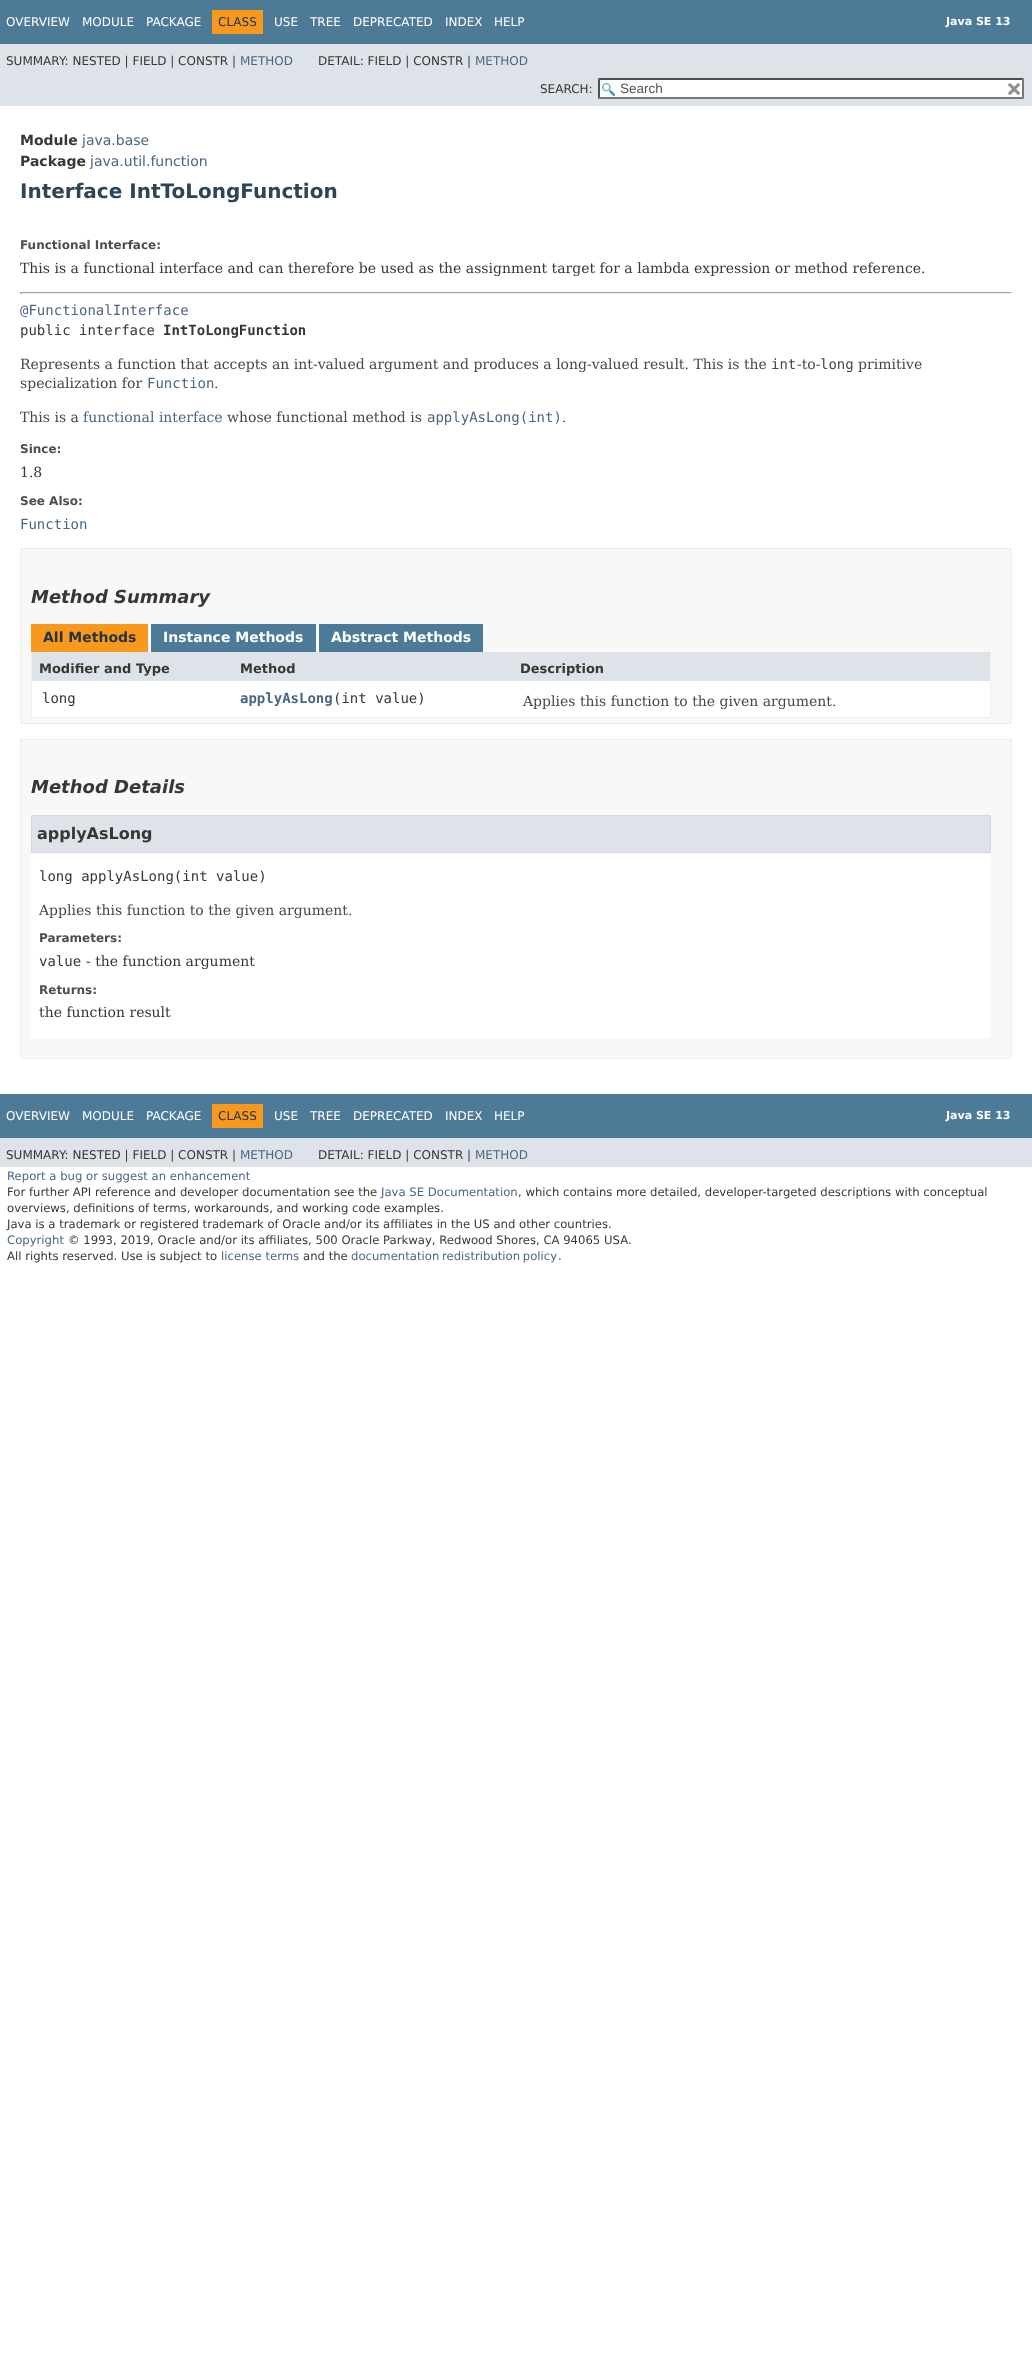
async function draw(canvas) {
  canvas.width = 1032
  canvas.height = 2380
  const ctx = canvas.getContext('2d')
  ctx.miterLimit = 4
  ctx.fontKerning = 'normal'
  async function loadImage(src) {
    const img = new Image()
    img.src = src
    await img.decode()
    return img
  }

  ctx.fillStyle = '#fff'
  ctx.fillRect(0, 0, 1032, 2380)
  ctx.fillStyle = '#4d7a97'
  ctx.fillRect(0, 0, 1032, 44)
  ctx.font = '12px DejaVu Sans'
  ctx.fillStyle = '#fff'
  ctx.fillText('OVERVIEW', 6, 26)
  ctx.fillText('MODULE', 82, 26)
  ctx.fillText('PACKAGE', 146, 26)
  ctx.fillStyle = '#f8981d'
  ctx.fillRect(212, 10, 51, 24)
  ctx.fillStyle = '#253441'
  ctx.fillText('CLASS', 218, 26)
  ctx.fillStyle = '#fff'
  ctx.fillText('USE', 274, 26)
  ctx.fillText('TREE', 310, 26)
  ctx.fillText('DEPRECATED', 353, 26)
  ctx.fillText('INDEX', 445, 26)
  ctx.fillText('HELP', 494, 26)
  ctx.font = 'bold 11px DejaVu Sans'
  ctx.fillText('Java SE 13', 946, 25)
  ctx.fillStyle = '#dee3e9'
  ctx.fillRect(0, 44, 1032, 62)
  ctx.font = '12px DejaVu Sans'
  ctx.fillStyle = '#353833'
  ctx.fillText('SUMMARY: NESTED | FIELD | CONSTR |', 6, 65)
  ctx.fillStyle = '#4a6782'
  ctx.fillText('METHOD', 240, 65)
  ctx.fillStyle = '#353833'
  ctx.fillText('DETAIL: FIELD | CONSTR |', 318, 65)
  ctx.fillStyle = '#4a6782'
  ctx.fillText('METHOD', 475, 65)
  ctx.fillStyle = '#353833'
  ctx.fillText('SEARCH:', 540, 93)
  ctx.fillStyle = '#fff'
  ctx.fillRect(598, 78, 426, 21)
  ctx.drawImage(await loadImage('image0.png'), 602, 83, 13, 13)
  ctx.fillStyle = '#4f4f4f'
  ctx.beginPath()
  ctx.moveTo(598, 78)
  ctx.lineTo(1024, 78)
  ctx.lineTo(1022, 80)
  ctx.lineTo(600, 80)
  ctx.closePath()
  ctx.fill()
  ctx.fillStyle = '#767676'
  ctx.beginPath()
  ctx.moveTo(1024, 78)
  ctx.lineTo(1024, 99)
  ctx.lineTo(1022, 97)
  ctx.lineTo(1022, 80)
  ctx.closePath()
  ctx.fill()
  ctx.beginPath()
  ctx.moveTo(1024, 99)
  ctx.lineTo(598, 99)
  ctx.lineTo(600, 97)
  ctx.lineTo(1022, 97)
  ctx.closePath()
  ctx.fill()
  ctx.fillStyle = '#4f4f4f'
  ctx.beginPath()
  ctx.moveTo(598, 99)
  ctx.lineTo(598, 78)
  ctx.lineTo(600, 80)
  ctx.lineTo(600, 97)
  ctx.closePath()
  ctx.fill()
  ctx.font = '13.5px Liberation Sans'
  ctx.fillStyle = '#545454'
  ctx.fillText('Search', 620, 93)
  ctx.drawImage(await loadImage('image1.png'), 1007, 83, 14, 12)
  ctx.font = 'bold 14px DejaVu Sans'
  ctx.fillStyle = '#353833'
  ctx.fillText('Module', 20, 145)
  ctx.font = '14px DejaVu Sans'
  ctx.fillStyle = '#4a6782'
  ctx.fillText('java.base', 82, 145)
  ctx.font = 'bold 14px DejaVu Sans'
  ctx.fillStyle = '#353833'
  ctx.fillText('Package', 20, 166)
  ctx.font = '14px DejaVu Sans'
  ctx.fillStyle = '#4a6782'
  ctx.fillText('java.util.function', 90, 166)
  ctx.font = 'bold 20px DejaVu Sans'
  ctx.fillStyle = '#2c4557'
  ctx.fillText('Interface IntToLongFunction', 20, 198)
  ctx.font = 'bold 12px DejaVu Sans'
  ctx.fillStyle = '#4e4e4e'
  ctx.fillText('Functional Interface:', 20, 249)
  ctx.font = '14px DejaVu Serif'
  ctx.fillStyle = '#353833'
  ctx.fillText('This is a functional interface and can therefore be used as the assignment target for a lambda expression or method reference.', 20, 273)
  ctx.fillStyle = '#9f9f9f'
  ctx.fillRect(20, 292, 992, 1)
  ctx.fillStyle = '#eee'
  ctx.fillRect(1011, 292, 1, 2)
  ctx.fillRect(20, 293, 992, 1)
  ctx.fillStyle = '#9f9f9f'
  ctx.fillRect(20, 292, 1, 2)
  ctx.font = '14px DejaVu Sans Mono'
  ctx.fillStyle = '#4a6782'
  ctx.fillText('@FunctionalInterface', 20, 315)
  ctx.fillStyle = '#353833'
  ctx.fillText('public interface', 20, 335)
  ctx.font = 'bold 14px DejaVu Sans Mono'
  ctx.fillText('IntToLongFunction', 163, 335)
  ctx.font = '14px DejaVu Serif'
  ctx.fillStyle = '#474747'
  ctx.fillText('Represents a function that accepts an int-valued argument and produces a long-valued result. This is the', 20, 369)
  ctx.font = '14px DejaVu Sans Mono'
  ctx.fillText('int', 771, 369)
  ctx.font = '14px DejaVu Serif'
  ctx.fillText('-to-', 797, 369)
  ctx.font = '14px DejaVu Sans Mono'
  ctx.fillText('long', 820, 369)
  ctx.font = '14px DejaVu Serif'
  ctx.fillText('primitive', 858, 369)
  ctx.fillText('specialization for', 20, 388)
  ctx.font = '14px DejaVu Sans Mono'
  ctx.fillStyle = '#4a6782'
  ctx.fillText('Function', 147, 388)
  ctx.font = '14px DejaVu Serif'
  ctx.fillStyle = '#474747'
  ctx.fillText('.', 214, 388)
  ctx.fillText('This is a', 20, 422)
  ctx.fillStyle = '#4a6782'
  ctx.fillText('functional interface', 83, 422)
  ctx.fillStyle = '#474747'
  ctx.fillText('whose functional method is', 227, 422)
  ctx.font = '14px DejaVu Sans Mono'
  ctx.fillStyle = '#4a6782'
  ctx.fillText('applyAsLong(int)', 427, 422)
  ctx.font = '14px DejaVu Serif'
  ctx.fillStyle = '#474747'
  ctx.fillText('.', 562, 422)
  ctx.font = 'bold 12px DejaVu Sans'
  ctx.fillStyle = '#4e4e4e'
  ctx.fillText('Since:', 20, 453)
  ctx.font = '14px DejaVu Serif'
  ctx.fillStyle = '#353833'
  ctx.fillText('1.8', 20, 477)
  ctx.font = 'bold 12px DejaVu Sans'
  ctx.fillStyle = '#4e4e4e'
  ctx.fillText('See Also:', 20, 505)
  ctx.font = '14px DejaVu Sans Mono'
  ctx.fillStyle = '#4a6782'
  ctx.fillText('Function', 20, 529)
  ctx.fillStyle = '#f8f8f8'
  ctx.beginPath()
  ctx.rect(20.5, 548.5, 991, 175)
  ctx.fill()
  ctx.strokeStyle = '#ededed'
  ctx.stroke()
  ctx.font = 'italic bold 18px DejaVu Sans'
  ctx.fillStyle = '#353833'
  ctx.fillText('Method Summary', 31, 603)
  ctx.fillStyle = '#f8981d'
  ctx.fillRect(31, 624, 117, 28)
  ctx.font = 'bold 14px DejaVu Sans'
  ctx.fillStyle = '#253441'
  ctx.fillText('All Methods', 43, 642)
  ctx.fillStyle = '#4d7a97'
  ctx.fillRect(151, 624, 165, 28)
  ctx.fillStyle = '#fff'
  ctx.fillText('Instance Methods', 163, 642)
  ctx.fillStyle = '#4d7a97'
  ctx.fillRect(319, 624, 164, 28)
  ctx.fillStyle = '#fff'
  ctx.fillText('Abstract Methods', 331, 642)
  ctx.fillStyle = '#eee'
  ctx.fillRect(990, 652, 1, 66)
  ctx.fillRect(31, 717, 960, 1)
  ctx.fillRect(31, 652, 1, 66)
  ctx.fillStyle = '#dee3e9'
  ctx.fillRect(32, 652, 958, 29)
  ctx.font = 'bold 13px DejaVu Sans'
  ctx.fillStyle = '#353833'
  ctx.fillText('Modifier and Type', 39, 673)
  ctx.fillText('Method', 240, 673)
  ctx.fillText('Description', 520, 673)
  ctx.fillStyle = '#fff'
  ctx.fillRect(32, 681, 958, 36)
  ctx.font = '14px DejaVu Sans Mono'
  ctx.fillStyle = '#353833'
  ctx.fillText('long', 42, 703)
  ctx.font = 'bold 14px DejaVu Sans Mono'
  ctx.fillStyle = '#4a6782'
  ctx.fillText('applyAsLong', 240, 703)
  ctx.font = '14px DejaVu Sans Mono'
  ctx.fillStyle = '#353833'
  ctx.fillText('(int value)', 333, 703)
  ctx.font = '14px DejaVu Serif'
  ctx.fillStyle = '#474747'
  ctx.fillText('Applies this function to the given argument.', 523, 706)
  ctx.fillStyle = '#f8f8f8'
  ctx.beginPath()
  ctx.rect(20.5, 739.5, 991, 319)
  ctx.fill()
  ctx.stroke()
  ctx.font = 'italic bold 18px DejaVu Sans'
  ctx.fillStyle = '#353833'
  ctx.fillText('Method Details', 31, 793)
  ctx.fillStyle = '#fff'
  ctx.fillRect(31, 853, 960, 185)
  ctx.fillStyle = '#dee3e9'
  ctx.beginPath()
  ctx.rect(31.5, 815.5, 959, 37)
  ctx.fill()
  ctx.strokeStyle = '#d0d9e0'
  ctx.stroke()
  ctx.font = 'bold 16px DejaVu Sans'
  ctx.fillStyle = '#353833'
  ctx.fillText('applyAsLong', 37, 839)
  ctx.font = '14px DejaVu Sans Mono'
  ctx.fillText('long applyAsLong(int value)', 39, 881)
  ctx.font = '14px DejaVu Serif'
  ctx.fillStyle = '#474747'
  ctx.fillText('Applies this function to the given argument.', 39, 915)
  ctx.font = 'bold 12px DejaVu Sans'
  ctx.fillStyle = '#4e4e4e'
  ctx.fillText('Parameters:', 39, 942)
  ctx.font = '14px DejaVu Sans Mono'
  ctx.fillStyle = '#353833'
  ctx.fillText('value', 39, 966)
  ctx.font = '14px DejaVu Serif'
  ctx.fillText('- the function argument', 86, 966)
  ctx.font = 'bold 12px DejaVu Sans'
  ctx.fillStyle = '#4e4e4e'
  ctx.fillText('Returns:', 39, 994)
  ctx.font = '14px DejaVu Serif'
  ctx.fillStyle = '#353833'
  ctx.fillText('the function result', 39, 1017)
  ctx.fillStyle = '#4d7a97'
  ctx.fillRect(0, 1094, 1032, 44)
  ctx.font = '12px DejaVu Sans'
  ctx.fillStyle = '#fff'
  ctx.fillText('OVERVIEW', 6, 1120)
  ctx.fillText('MODULE', 82, 1120)
  ctx.fillText('PACKAGE', 146, 1120)
  ctx.fillStyle = '#f8981d'
  ctx.fillRect(212, 1104, 51, 24)
  ctx.fillStyle = '#253441'
  ctx.fillText('CLASS', 218, 1120)
  ctx.fillStyle = '#fff'
  ctx.fillText('USE', 274, 1120)
  ctx.fillText('TREE', 310, 1120)
  ctx.fillText('DEPRECATED', 353, 1120)
  ctx.fillText('INDEX', 445, 1120)
  ctx.fillText('HELP', 494, 1120)
  ctx.font = 'bold 11px DejaVu Sans'
  ctx.fillText('Java SE 13', 946, 1119)
  ctx.fillStyle = '#dee3e9'
  ctx.fillRect(0, 1138, 1032, 29)
  ctx.font = '12px DejaVu Sans'
  ctx.fillStyle = '#353833'
  ctx.fillText('SUMMARY: NESTED | FIELD | CONSTR |', 6, 1159)
  ctx.fillStyle = '#4a6782'
  ctx.fillText('METHOD', 240, 1159)
  ctx.fillStyle = '#353833'
  ctx.fillText('DETAIL: FIELD | CONSTR |', 318, 1159)
  ctx.fillStyle = '#4a6782'
  ctx.fillText('METHOD', 475, 1159)
  ctx.font = '11.67px DejaVu Sans'
  ctx.fillText('Report a bug or suggest an enhancement', 7, 1180)
  ctx.fillStyle = '#353833'
  ctx.fillText('For further API reference and developer documentation see the', 7, 1196)
  ctx.fillStyle = '#4a6782'
  ctx.fillText('Java SE Documentation', 381, 1196)
  ctx.fillStyle = '#353833'
  ctx.fillText(', which contains more detailed, developer-targeted descriptions with conceptual', 518, 1196)
  ctx.fillText('overviews, definitions of terms, workarounds, and working code examples.', 7, 1212)
  ctx.fillText('Java is a trademark or registered trademark of Oracle and/or its affiliates in the US and other countries.', 7, 1228)
  ctx.fillStyle = '#4a6782'
  ctx.fillText('Copyright', 7, 1244)
  ctx.fillStyle = '#353833'
  ctx.fillText('© 1993, 2019, Oracle and/or its affiliates, 500 Oracle Parkway, Redwood Shores, CA 94065 USA.', 68, 1244)
  ctx.fillText('All rights reserved. Use is subject to', 7, 1260)
  ctx.fillStyle = '#4a6782'
  ctx.fillText('license terms', 221, 1260)
  ctx.fillStyle = '#353833'
  ctx.fillText('and the', 303, 1260)
  ctx.wordSpacing = '-1px'
  ctx.fillStyle = '#4a6782'
  ctx.fillText('documentation redistribution policy', 351, 1260)
  ctx.wordSpacing = '0px'
  ctx.fillStyle = '#353833'
  ctx.fillText('.', 558, 1260)
}

draw(document.querySelector('canvas'))
